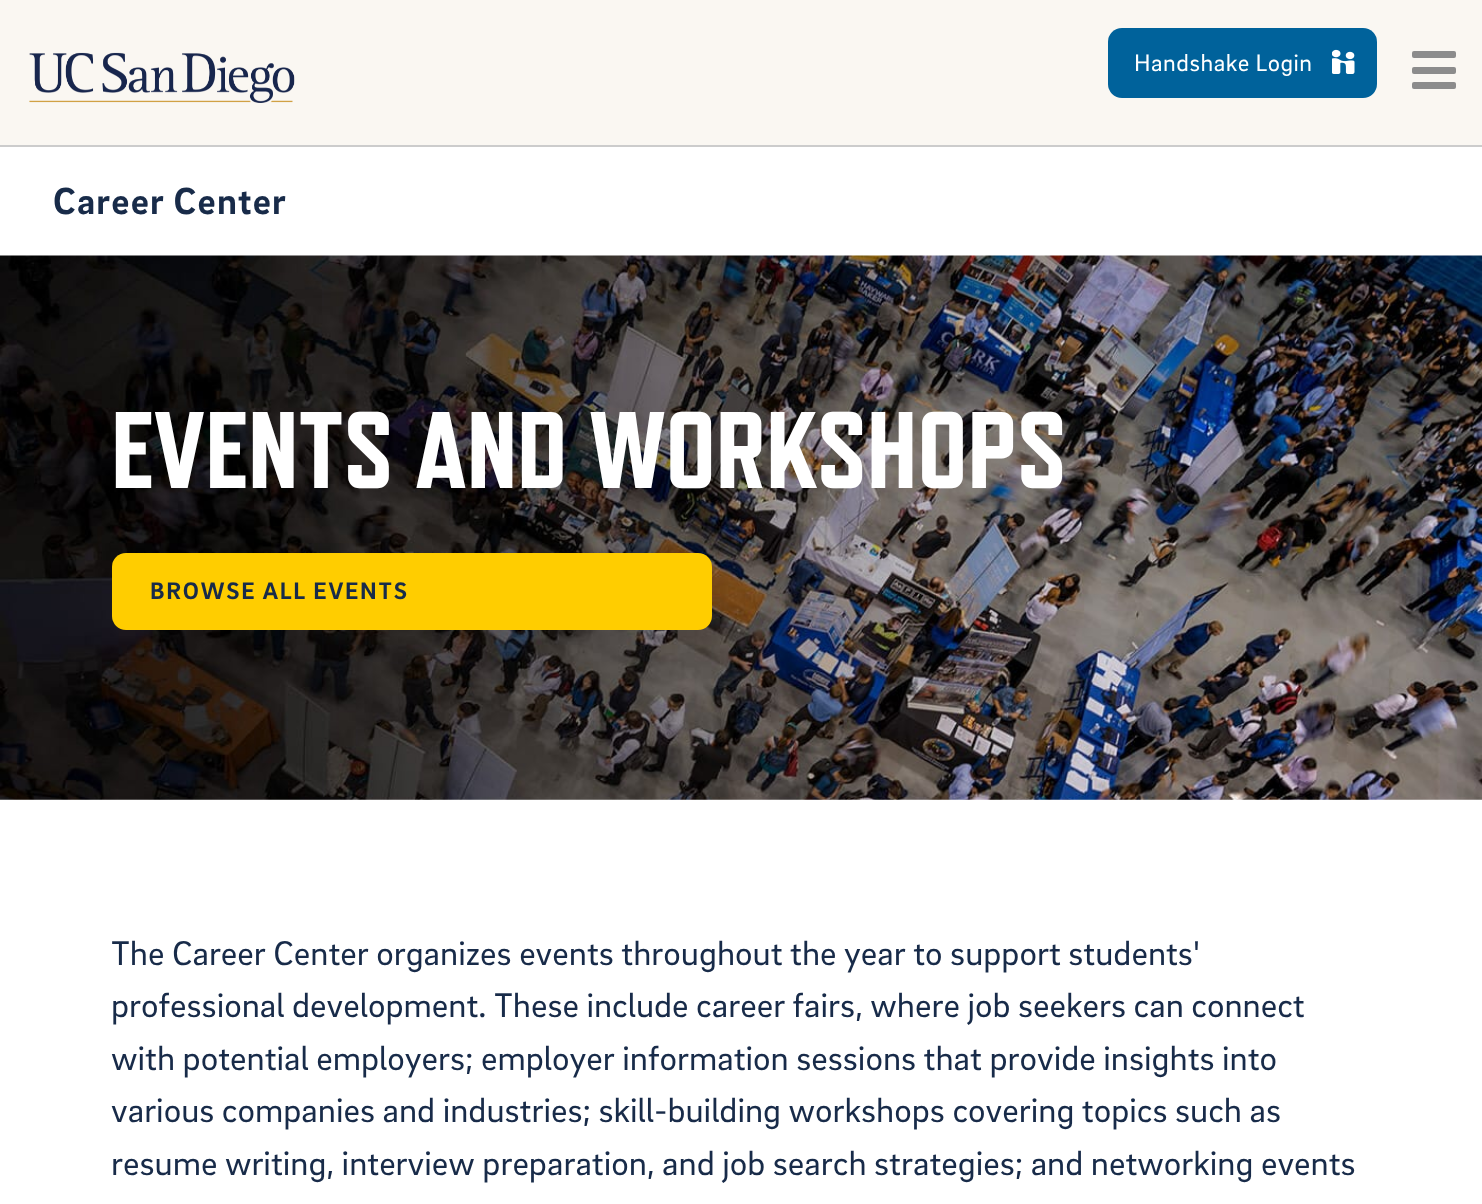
async function draw(canvas) {
  canvas.width = 1482
  canvas.height = 1204
  const ctx = canvas.getContext('2d')
  ctx.miterLimit = 4
  ctx.fontKerning = 'normal'
  async function loadImage(src) {
    const img = new Image()
    img.src = src
    await img.decode()
    return img
  }

  ctx.fillStyle = '#fff'
  ctx.fillRect(0, 0, 1482, 1204)
  ctx.fillStyle = '#ccc'
  ctx.fillRect(0, 145, 1482, 2)
  ctx.fillStyle = '#faf7f2'
  ctx.fillRect(0, 0, 1482, 145)
  ctx.drawImage(await loadImage('image0.png'), 29, 52, 266, 51)
  ctx.fillStyle = '#00629b'
  ctx.beginPath()
  ctx.roundRect(1108, 28, 269, 70, 14)
  ctx.fill()
  ctx.letterSpacing = '0.5px'
  ctx.font = '24.5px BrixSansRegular'
  ctx.fillStyle = '#fff'
  ctx.fillText('Handshake Login', 1134, 71)
  ctx.drawImage(await loadImage('image1.png'), 1332, 49, 23, 25)
  ctx.fillStyle = '#8c8c8c'
  ctx.beginPath()
  ctx.roundRect(1412, 51, 44, 7, 2)
  ctx.fill()
  ctx.beginPath()
  ctx.roundRect(1412, 67, 44, 7, 2)
  ctx.fill()
  ctx.beginPath()
  ctx.roundRect(1412, 82, 44, 7, 2)
  ctx.fill()
  ctx.letterSpacing = '1.2px'
  ctx.font = '38.5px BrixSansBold'
  ctx.fillStyle = '#182b49'
  ctx.fillText('Career Center', 53, 214)
  ctx.drawImage(await loadImage('image2.png'), 0, 255, 1482, 545)
  ctx.letterSpacing = '0px'
  ctx.font = '800 108.5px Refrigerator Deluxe'
  ctx.fillStyle = '#fff'
  ctx.fillText('EVENTS AND WORKSHOPS', 111, 488)
  ctx.fillStyle = '#ffcd00'
  ctx.beginPath()
  ctx.roundRect(112, 553, 600, 77, 14)
  ctx.fill()
  ctx.letterSpacing = '1.75px'
  ctx.font = '24.5px BrixSansBold'
  ctx.fillStyle = '#182b49'
  ctx.fillText('BROWSE ALL EVENTS', 150, 599)
  ctx.letterSpacing = '0px'
  ctx.font = '35px BrixSansRegular'
  ctx.fillText('The Career Center organizes events throughout the year to support students\'', 111, 965)
  ctx.fillText('professional development. These include career fairs, where job seekers can connect', 111, 1017)
  ctx.fillText('with potential employers; employer information sessions that provide insights into', 111, 1070)
  ctx.fillText('various companies and industries; skill-building workshops covering topics such as', 111, 1122)
  ctx.fillText('resume writing, interview preparation, and job search strategies; and networking events', 111, 1175)
}

draw(document.querySelector('canvas'))
